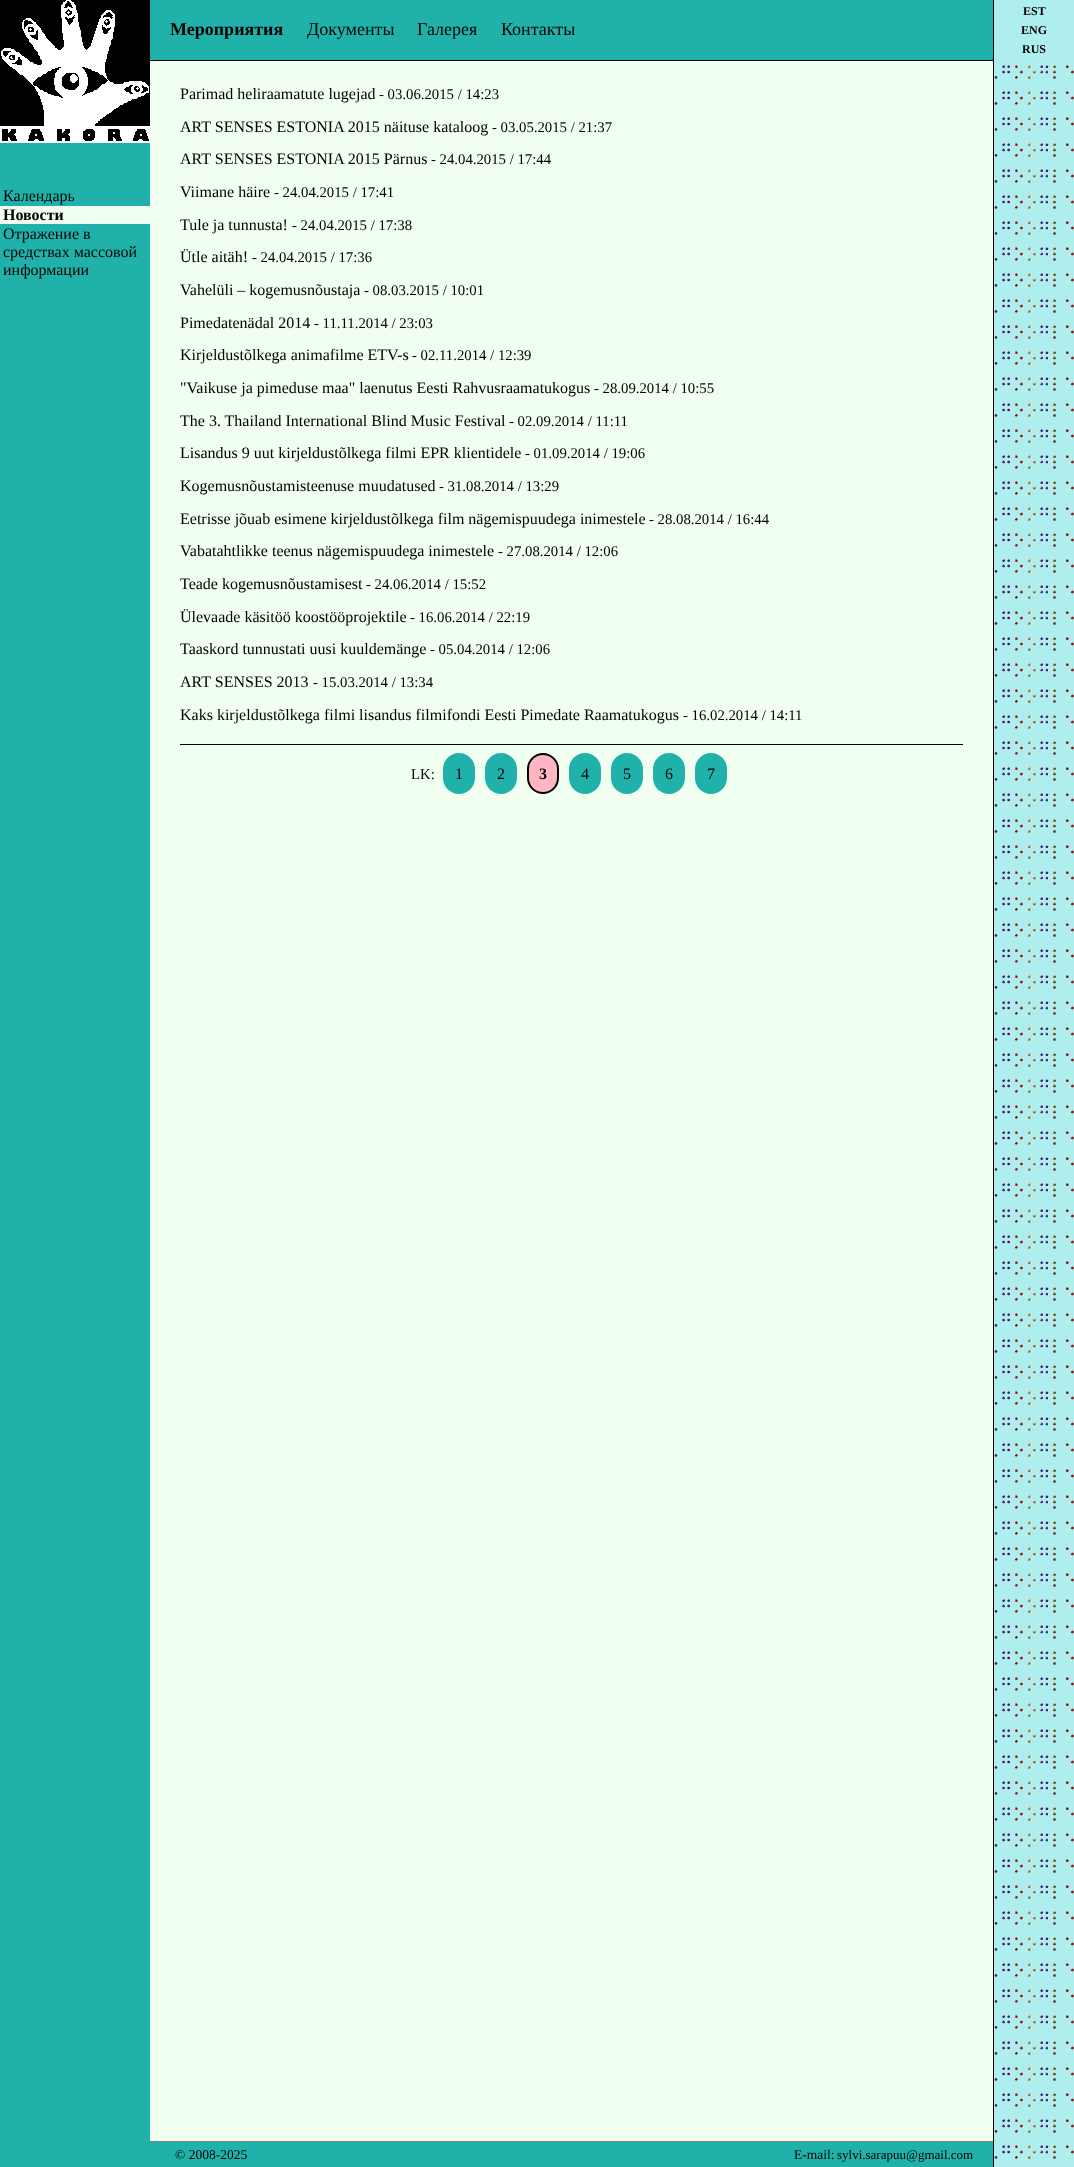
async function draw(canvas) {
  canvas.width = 1074
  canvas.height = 2167
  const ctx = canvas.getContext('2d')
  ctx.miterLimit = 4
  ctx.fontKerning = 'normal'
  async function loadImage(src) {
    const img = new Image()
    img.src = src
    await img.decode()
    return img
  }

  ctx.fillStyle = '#20b2aa'
  ctx.fillRect(0, 0, 1074, 2167)
  ctx.drawImage(await loadImage('image0.png'), 0, 0, 150, 143)
  ctx.font = '16px Liberation Serif'
  ctx.fillStyle = '#000'
  ctx.fillText('Календарь', 3, 201)
  ctx.fillStyle = '#f0fff0'
  ctx.fillRect(0, 206, 150, 18)
  ctx.font = 'bold 16px Liberation Serif'
  ctx.fillStyle = '#000'
  ctx.fillText('Новости', 3, 220)
  ctx.font = '16px Liberation Serif'
  ctx.fillText('Oтражение в', 3, 239)
  ctx.fillText('средствах массовой', 3, 257)
  ctx.fillText('информации', 3, 275)
  ctx.fillRect(150, 60, 844, 1)
  ctx.font = 'bold 18px Liberation Serif'
  ctx.fillText('Мероприятия', 170, 35)
  ctx.font = '18px Liberation Serif'
  ctx.fillText('Документы', 307, 35)
  ctx.fillText('Галерея', 417, 35)
  ctx.fillText('Контакты', 501, 35)
  ctx.fillStyle = '#f0fff0'
  ctx.fillRect(150, 61, 843, 2080)
  ctx.font = '16px Liberation Serif'
  ctx.fillStyle = '#000'
  ctx.fillText('Parimad heliraamatute lugejad', 180, 99)
  ctx.font = '14.75px Liberation Serif'
  ctx.fillText('- 03.06.2015 / 14:23', 379, 99)
  ctx.font = '16px Liberation Serif'
  ctx.fillText('ART SENSES ESTONIA 2015 näituse kataloog', 180, 132)
  ctx.font = '14.75px Liberation Serif'
  ctx.fillText('- 03.05.2015 / 21:37', 492, 132)
  ctx.font = '16px Liberation Serif'
  ctx.fillText('ART SENSES ESTONIA 2015 Pärnus', 180, 164)
  ctx.font = '14.75px Liberation Serif'
  ctx.fillText('- 24.04.2015 / 17:44', 431, 164)
  ctx.font = '16px Liberation Serif'
  ctx.fillText('Viimane häire', 180, 197)
  ctx.font = '14.75px Liberation Serif'
  ctx.fillText('- 24.04.2015 / 17:41', 274, 197)
  ctx.font = '16px Liberation Serif'
  ctx.fillText('Tule ja tunnusta!', 180, 230)
  ctx.font = '14.75px Liberation Serif'
  ctx.fillText('- 24.04.2015 / 17:38', 292, 230)
  ctx.font = '16px Liberation Serif'
  ctx.fillText('Ütle aitäh!', 180, 262)
  ctx.font = '14.75px Liberation Serif'
  ctx.fillText('- 24.04.2015 / 17:36', 252, 262)
  ctx.font = '16px Liberation Serif'
  ctx.fillText('Vahelüli – kogemusnõustaja', 180, 295)
  ctx.font = '14.75px Liberation Serif'
  ctx.fillText('- 08.03.2015 / 10:01', 364, 295)
  ctx.font = '16px Liberation Serif'
  ctx.fillText('Pimedatenädal 2014', 180, 328)
  ctx.font = '14.75px Liberation Serif'
  ctx.fillText('- 11.11.2014 / 23:03', 314, 328)
  ctx.font = '16px Liberation Serif'
  ctx.fillText('Kirjeldustõlkega animafilme ETV-s', 180, 360)
  ctx.font = '14.75px Liberation Serif'
  ctx.fillText('- 02.11.2014 / 12:39', 412, 360)
  ctx.font = '16px Liberation Serif'
  ctx.fillText('"Vaikuse ja pimeduse maa" laenutus Eesti Rahvusraamatukogus', 180, 393)
  ctx.font = '14.75px Liberation Serif'
  ctx.fillText('- 28.09.2014 / 10:55', 594, 393)
  ctx.font = '16px Liberation Serif'
  ctx.fillText('The 3. Thailand International Blind Music Festival', 180, 426)
  ctx.font = '14.75px Liberation Serif'
  ctx.fillText('- 02.09.2014 / 11:11', 509, 426)
  ctx.font = '16px Liberation Serif'
  ctx.fillText('Lisandus 9 uut kirjeldustõlkega filmi EPR klientidele', 180, 458)
  ctx.font = '14.75px Liberation Serif'
  ctx.fillText('- 01.09.2014 / 19:06', 525, 458)
  ctx.font = '16px Liberation Serif'
  ctx.fillText('Kogemusnõustamisteenuse muudatused', 180, 491)
  ctx.font = '14.75px Liberation Serif'
  ctx.fillText('- 31.08.2014 / 13:29', 439, 491)
  ctx.font = '16px Liberation Serif'
  ctx.fillText('Eetrisse jõuab esimene kirjeldustõlkega film nägemispuudega inimestele', 180, 524)
  ctx.font = '14.75px Liberation Serif'
  ctx.fillText('- 28.08.2014 / 16:44', 649, 524)
  ctx.font = '16px Liberation Serif'
  ctx.fillText('Vabatahtlikke teenus nägemispuudega inimestele', 180, 556)
  ctx.font = '14.75px Liberation Serif'
  ctx.fillText('- 27.08.2014 / 12:06', 498, 556)
  ctx.font = '16px Liberation Serif'
  ctx.fillText('Teade kogemusnõustamisest', 180, 589)
  ctx.font = '14.75px Liberation Serif'
  ctx.fillText('- 24.06.2014 / 15:52', 366, 589)
  ctx.font = '16px Liberation Serif'
  ctx.fillText('Ülevaade käsitöö koostööprojektile', 180, 622)
  ctx.font = '14.75px Liberation Serif'
  ctx.fillText('- 16.06.2014 / 22:19', 410, 622)
  ctx.font = '16px Liberation Serif'
  ctx.fillText('Taaskord tunnustati uusi kuuldemänge', 180, 654)
  ctx.font = '14.75px Liberation Serif'
  ctx.fillText('- 05.04.2014 / 12:06', 430, 654)
  ctx.font = '16px Liberation Serif'
  ctx.fillText('ART SENSES 2013', 180, 687)
  ctx.font = '14.75px Liberation Serif'
  ctx.fillText('- 15.03.2014 / 13:34', 313, 687)
  ctx.font = '16px Liberation Serif'
  ctx.fillText('Kaks kirjeldustõlkega filmi lisandus filmifondi Eesti Pimedate Raamatukogus', 180, 720)
  ctx.font = '14.75px Liberation Serif'
  ctx.fillText('- 16.02.2014 / 14:11', 683, 720)
  ctx.fillRect(180, 744, 783, 1)
  ctx.fillText('LK:', 411, 779)
  ctx.fillStyle = '#20b2aa'
  ctx.beginPath()
  ctx.roundRect(443, 753, 32, 41, 16)
  ctx.fill()
  ctx.font = '16px Liberation Serif'
  ctx.fillStyle = '#000'
  ctx.fillText('1', 455, 779)
  ctx.fillStyle = '#20b2aa'
  ctx.beginPath()
  ctx.roundRect(485, 753, 32, 41, 16)
  ctx.fill()
  ctx.fillStyle = '#000'
  ctx.fillText('2', 497, 779)
  ctx.fillStyle = '#ffb6c1'
  ctx.beginPath()
  ctx.roundRect(528, 754, 30, 39, 15)
  ctx.fill()
  ctx.strokeStyle = '#000'
  ctx.lineWidth = 2
  ctx.stroke()
  ctx.font = 'bold 16px Liberation Serif'
  ctx.fillStyle = '#000'
  ctx.fillText('3', 539, 779)
  ctx.fillStyle = '#20b2aa'
  ctx.beginPath()
  ctx.roundRect(569, 753, 32, 41, 16)
  ctx.fill()
  ctx.font = '16px Liberation Serif'
  ctx.fillStyle = '#000'
  ctx.fillText('4', 581, 779)
  ctx.fillStyle = '#20b2aa'
  ctx.beginPath()
  ctx.roundRect(611, 753, 32, 41, 16)
  ctx.fill()
  ctx.fillStyle = '#000'
  ctx.fillText('5', 623, 779)
  ctx.fillStyle = '#20b2aa'
  ctx.beginPath()
  ctx.roundRect(653, 753, 32, 41, 16)
  ctx.fill()
  ctx.fillStyle = '#000'
  ctx.fillText('6', 665, 779)
  ctx.fillStyle = '#20b2aa'
  ctx.beginPath()
  ctx.roundRect(695, 753, 32, 41, 16)
  ctx.fill()
  ctx.fillStyle = '#000'
  ctx.fillText('7', 707, 779)
  ctx.fillStyle = '#828282'
  ctx.fillRect(150, 2141, 844, 1)
  ctx.font = '13.5px Liberation Serif'
  ctx.fillStyle = '#000'
  ctx.fillText('© 2008-2025', 175, 2159)
  ctx.fillText('E-mail:', 794, 2159)
  ctx.font = '13px Liberation Serif'
  ctx.fillText('sylvi.sarapuu@gmail.com', 837, 2159)
  ctx.fillStyle = '#afeeee'
  ctx.fillRect(994, 0, 80, 2167)
  ctx.fillStyle = '#000'
  ctx.fillRect(993, 0, 1, 2167)
  ctx.font = 'bold 12px Liberation Serif'
  ctx.fillText('EST', 1023, 15)
  ctx.fillText('ENG', 1021, 34)
  ctx.fillText('RUS', 1022, 53)
  ctx.drawImage(await loadImage('image1.png'), 994, 65, 80, 2095)
}

draw(document.querySelector('canvas'))
